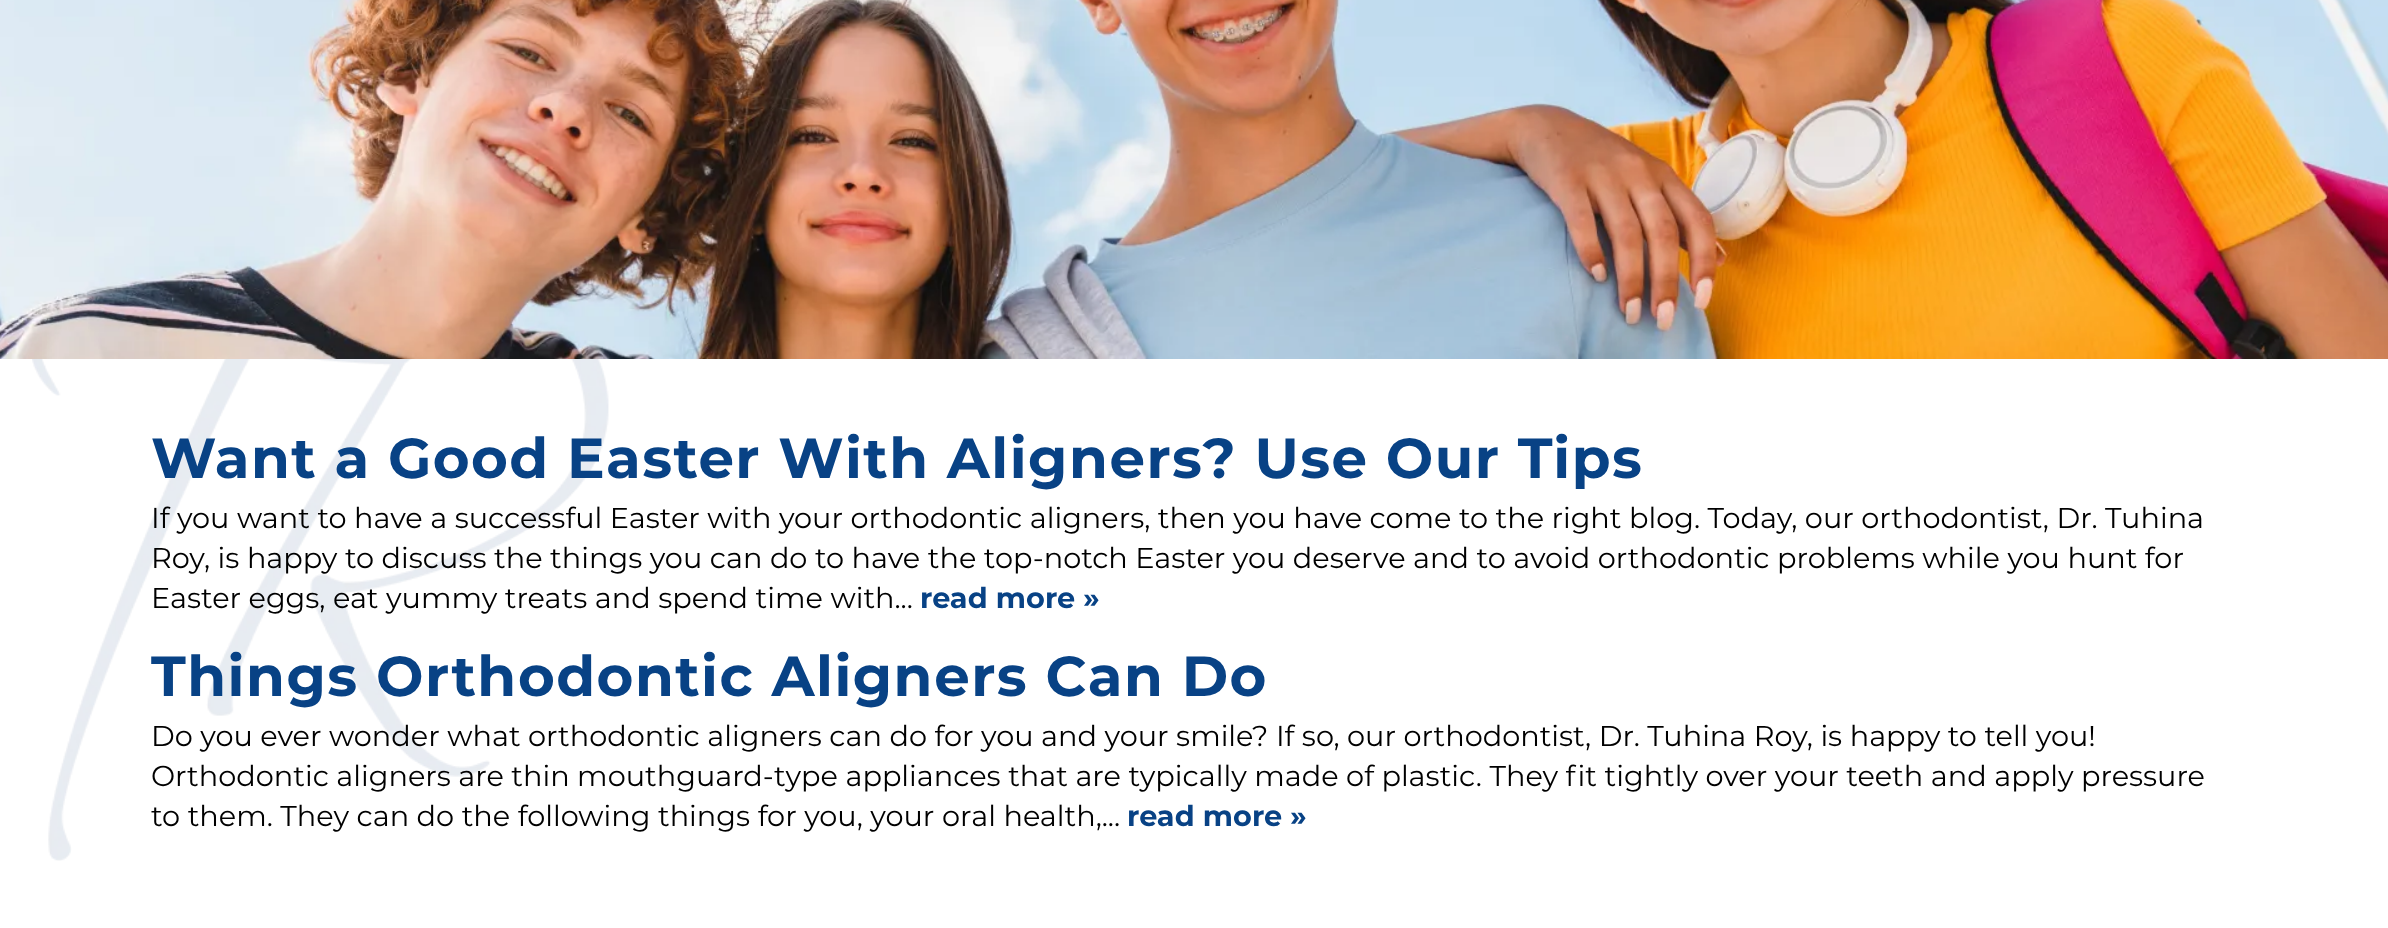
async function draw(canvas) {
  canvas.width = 2388
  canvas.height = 928
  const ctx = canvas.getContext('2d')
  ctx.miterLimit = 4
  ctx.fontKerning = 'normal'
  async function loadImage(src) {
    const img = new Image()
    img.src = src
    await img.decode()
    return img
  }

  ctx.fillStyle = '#fff'
  ctx.fillRect(0, 0, 2388, 928)
  ctx.drawImage(await loadImage('image0.png'), 0, 0, 2388, 359)
  ctx.drawImage(await loadImage('image1.png'), 32, 359, 577, 502)
  ctx.letterSpacing = '1.45px'
  ctx.font = 'bold 56.25px Montserrat'
  ctx.fillStyle = '#084285'
  ctx.fillText('Want a Good Easter With Aligners? Use Our Tips', 151, 478)
  ctx.letterSpacing = '0px'
  ctx.font = '28.75px Montserrat'
  ctx.fillStyle = '#000'
  ctx.fillText('If you want to have a successful Easter with your orthodontic aligners, then you have come to the right blog. Today, our orthodontist, Dr. Tuhina', 151, 528)
  ctx.fillText('Roy, is happy to discuss the things you can do to have the top-notch Easter you deserve and to avoid orthodontic problems while you hunt for', 151, 568)
  ctx.fillText('Easter eggs, eat yummy treats and spend time with...', 151, 608)
  ctx.font = 'bold 28.75px Montserrat'
  ctx.fillStyle = '#084285'
  ctx.fillText('read more »', 920, 608)
  ctx.letterSpacing = '1.45px'
  ctx.font = 'bold 56.25px Montserrat'
  ctx.fillText('Things Orthodontic Aligners Can Do', 151, 696)
  ctx.letterSpacing = '0px'
  ctx.font = '28.75px Montserrat'
  ctx.fillStyle = '#000'
  ctx.fillText('Do you ever wonder what orthodontic aligners can do for you and your smile? If so, our orthodontist, Dr. Tuhina Roy, is happy to tell you!', 151, 746)
  ctx.fillText('Orthodontic aligners are thin mouthguard-type appliances that are typically made of plastic. They fit tightly over your teeth and apply pressure', 151, 786)
  ctx.fillText('to them. They can do the following things for you, your oral health,...', 151, 826)
  ctx.font = 'bold 28.75px Montserrat'
  ctx.fillStyle = '#084285'
  ctx.fillText('read more »', 1127, 826)
}

draw(document.querySelector('canvas'))
